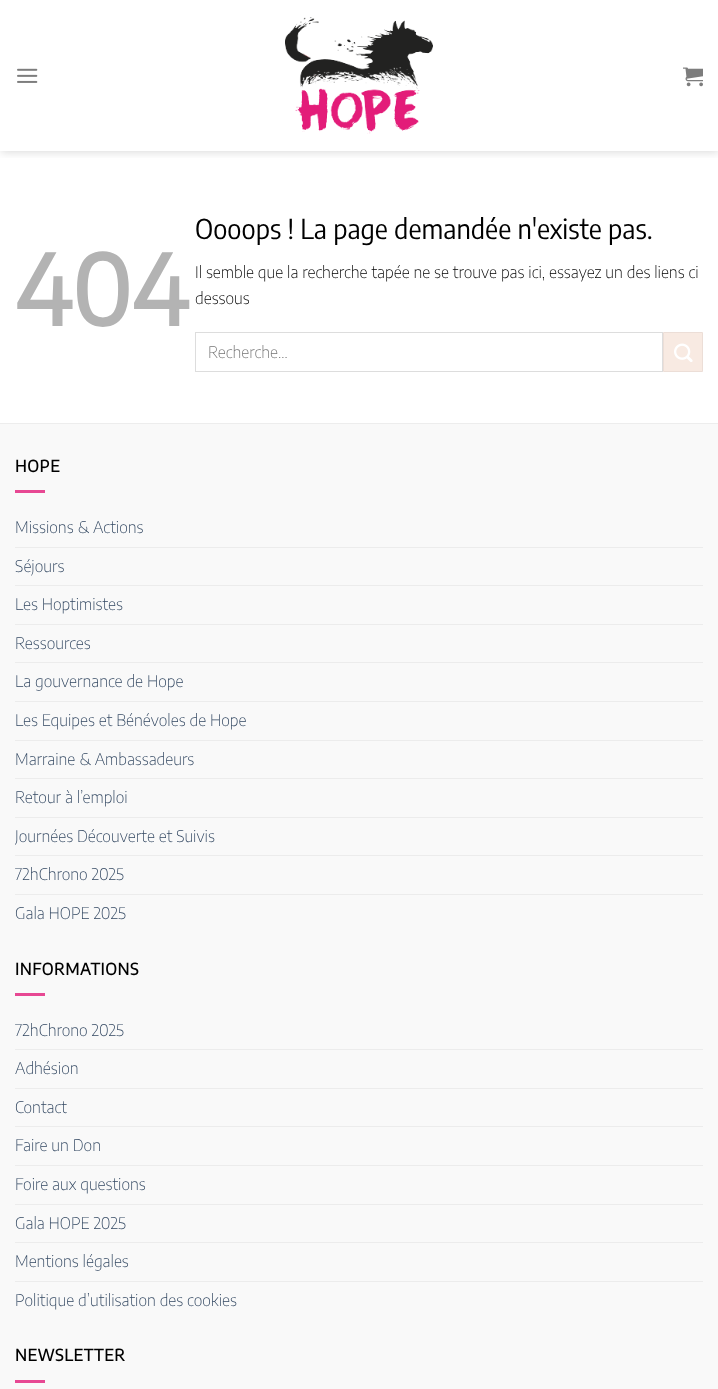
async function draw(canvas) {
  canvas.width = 718
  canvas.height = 1389
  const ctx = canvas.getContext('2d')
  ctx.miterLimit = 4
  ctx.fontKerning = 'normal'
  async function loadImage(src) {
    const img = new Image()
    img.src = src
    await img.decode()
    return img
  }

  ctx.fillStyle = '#fff'
  ctx.fillRect(0, 0, 718, 1389)
  ctx.save()
  ctx.beginPath()
  ctx.rect(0, 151, 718, 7)
  ctx.clip()
  ctx.fillStyle = '#00000026'
  ctx.filter = 'blur(5px)'
  ctx.beginPath()
  ctx.rect(1, 1, 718, 151)
  ctx.fill()
  ctx.filter = 'none'
  ctx.restore()
  ctx.drawImage(await loadImage('image0.png'), 17, 68, 21, 15)
  ctx.drawImage(await loadImage('image1.png'), 285, 17, 148, 117)
  ctx.drawImage(await loadImage('image2.png'), 683, 67, 20, 20)
  ctx.font = 'bold 96px Encode Sans Condensed'
  ctx.fillStyle = '#b3b3b3'
  ctx.fillText('404', 15, 326)
  ctx.font = '27.25px Encode Sans Semi Condensed'
  ctx.fillStyle = '#000'
  ctx.fillText('Oooops ! La page demandée n\'existe pas.', 195, 239)
  ctx.font = '200 16px Encode Sans Condensed'
  ctx.fillText('Il semble que la recherche tapée ne se trouve pas ici, essayez un des liens ci', 195, 278)
  ctx.fillText('dessous', 195, 304)
  ctx.strokeStyle = '#ddd'
  ctx.strokeRect(195.5, 332.5, 467, 39)
  ctx.fillStyle = '#757575'
  ctx.fillText('Recherche…', 208, 358)
  ctx.fillStyle = '#f8eae2'
  ctx.beginPath()
  ctx.rect(663.5, 332.5, 39, 39)
  ctx.fill()
  ctx.strokeStyle = '#ecded7'
  ctx.stroke()
  ctx.drawImage(await loadImage('image3.png'), 674, 343, 19, 19)
  ctx.fillStyle = '#f9f9f9'
  ctx.fillRect(0, 424, 718, 965)
  ctx.fillStyle = '#ededed'
  ctx.fillRect(0, 423, 718, 1)
  ctx.letterSpacing = '0.75px'
  ctx.font = 'bold 16px Encode Sans Condensed'
  ctx.fillStyle = '#000'
  ctx.fillText('HOPE', 15, 472)
  ctx.fillStyle = '#e74893'
  ctx.fillRect(15, 490, 30, 3)
  ctx.letterSpacing = '0px'
  ctx.font = '200 16px Encode Sans Condensed'
  ctx.fillStyle = '#334862'
  ctx.fillText('Missions & Actions', 15, 533)
  ctx.fillStyle = '#ececec'
  ctx.fillRect(15, 547, 688, 1)
  ctx.fillStyle = '#334862'
  ctx.fillText('Séjours', 15, 572)
  ctx.fillStyle = '#ececec'
  ctx.fillRect(15, 585, 688, 1)
  ctx.fillStyle = '#334862'
  ctx.fillText('Les Hoptimistes', 15, 610)
  ctx.fillStyle = '#ececec'
  ctx.fillRect(15, 624, 688, 1)
  ctx.fillStyle = '#334862'
  ctx.fillText('Ressources', 15, 649)
  ctx.fillStyle = '#ececec'
  ctx.fillRect(15, 662, 688, 1)
  ctx.fillStyle = '#334862'
  ctx.fillText('La gouvernance de Hope', 15, 687)
  ctx.fillStyle = '#ececec'
  ctx.fillRect(15, 701, 688, 1)
  ctx.fillStyle = '#334862'
  ctx.fillText('Les Equipes et Bénévoles de Hope', 15, 726)
  ctx.fillStyle = '#ececec'
  ctx.fillRect(15, 740, 688, 1)
  ctx.fillStyle = '#334862'
  ctx.fillText('Marraine & Ambassadeurs', 15, 765)
  ctx.fillStyle = '#ececec'
  ctx.fillRect(15, 778, 688, 1)
  ctx.fillStyle = '#334862'
  ctx.fillText('Retour à l’emploi', 15, 803)
  ctx.fillStyle = '#ececec'
  ctx.fillRect(15, 817, 688, 1)
  ctx.fillStyle = '#334862'
  ctx.fillText('Journées Découverte et Suivis', 15, 842)
  ctx.fillStyle = '#ececec'
  ctx.fillRect(15, 855, 688, 1)
  ctx.fillStyle = '#334862'
  ctx.fillText('72hChrono 2025', 15, 880)
  ctx.fillStyle = '#ececec'
  ctx.fillRect(15, 894, 688, 1)
  ctx.fillStyle = '#334862'
  ctx.fillText('Gala HOPE 2025', 15, 919)
  ctx.letterSpacing = '0.75px'
  ctx.font = 'bold 16px Encode Sans Condensed'
  ctx.fillStyle = '#000'
  ctx.fillText('INFORMATIONS', 15, 975)
  ctx.fillStyle = '#e74893'
  ctx.fillRect(15, 993, 30, 3)
  ctx.letterSpacing = '0px'
  ctx.font = '200 16px Encode Sans Condensed'
  ctx.fillStyle = '#334862'
  ctx.fillText('72hChrono 2025', 15, 1036)
  ctx.fillStyle = '#ececec'
  ctx.fillRect(15, 1049, 688, 1)
  ctx.fillStyle = '#334862'
  ctx.fillText('Adhésion', 15, 1074)
  ctx.fillStyle = '#ececec'
  ctx.fillRect(15, 1088, 688, 1)
  ctx.fillStyle = '#334862'
  ctx.fillText('Contact', 15, 1113)
  ctx.fillStyle = '#ececec'
  ctx.fillRect(15, 1126, 688, 1)
  ctx.fillStyle = '#334862'
  ctx.fillText('Faire un Don', 15, 1151)
  ctx.fillStyle = '#ececec'
  ctx.fillRect(15, 1165, 688, 1)
  ctx.fillStyle = '#334862'
  ctx.fillText('Foire aux questions', 15, 1190)
  ctx.fillStyle = '#ececec'
  ctx.fillRect(15, 1204, 688, 1)
  ctx.fillStyle = '#334862'
  ctx.fillText('Gala HOPE 2025', 15, 1229)
  ctx.fillStyle = '#ececec'
  ctx.fillRect(15, 1242, 688, 1)
  ctx.fillStyle = '#334862'
  ctx.fillText('Mentions légales', 15, 1267)
  ctx.fillStyle = '#ececec'
  ctx.fillRect(15, 1281, 688, 1)
  ctx.fillStyle = '#334862'
  ctx.fillText('Politique d’utilisation des cookies', 15, 1306)
  ctx.letterSpacing = '0.75px'
  ctx.font = 'bold 16px Encode Sans Condensed'
  ctx.fillStyle = '#000'
  ctx.fillText('NEWSLETTER', 15, 1361)
  ctx.fillStyle = '#e74893'
  ctx.fillRect(15, 1380, 30, 3)
}

draw(document.querySelector('canvas'))
